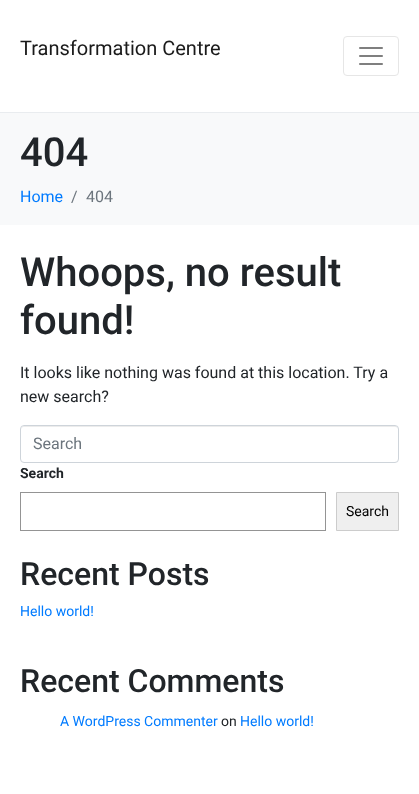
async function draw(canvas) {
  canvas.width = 419
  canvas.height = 794
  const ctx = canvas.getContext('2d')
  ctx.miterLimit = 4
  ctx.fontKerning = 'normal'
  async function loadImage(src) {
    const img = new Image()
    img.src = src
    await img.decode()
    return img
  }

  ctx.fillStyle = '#fff'
  ctx.fillRect(0, 0, 419, 794)
  ctx.fillStyle = '#e9ecef'
  ctx.fillRect(0, 112, 419, 1)
  ctx.font = '20px Roboto'
  ctx.fillStyle = '#1a1a1a'
  ctx.fillText('Transformation Centre', 20, 55)
  ctx.beginPath()
  ctx.roundRect(343.5, 36.5, 55, 39, 3.5)
  ctx.strokeStyle = '#e6e6e6'
  ctx.stroke()
  ctx.drawImage(await loadImage('image0.png'), 359, 47, 24, 18)
  ctx.fillStyle = '#f8f9fa'
  ctx.fillRect(0, 113, 419, 112)
  ctx.font = '500 40px Roboto'
  ctx.fillStyle = '#212529'
  ctx.fillText('404', 20, 166)
  ctx.font = '16px Roboto'
  ctx.fillStyle = '#007bff'
  ctx.fillText('Home', 20, 202)
  ctx.fillStyle = '#6c757d'
  ctx.fillText('/', 71, 202)
  ctx.fillText('404', 86, 202)
  ctx.font = '500 40px Roboto'
  ctx.fillStyle = '#212529'
  ctx.fillText('Whoops, no result', 20, 286)
  ctx.fillText('found!', 20, 334)
  ctx.font = '16px Roboto'
  ctx.fillText('It looks like nothing was found at this location. Try a', 20, 378)
  ctx.fillText('new search?', 20, 402)
  ctx.fillStyle = '#ececec'
  ctx.beginPath()
  ctx.moveTo(24, 427)
  ctx.lineTo(395, 427)
  ctx.bezierCurveTo(397, 427, 398, 428, 398, 430)
  ctx.bezierCurveTo(398, 428, 397, 426, 395, 426)
  ctx.lineTo(24, 426)
  ctx.lineTo(22, 427)
  ctx.lineTo(21, 430)
  ctx.bezierCurveTo(21, 428, 22, 427, 24, 427)
  ctx.closePath()
  ctx.fill()
  ctx.beginPath()
  ctx.roundRect(20.5, 425.5, 378, 37, 3.5)
  ctx.strokeStyle = '#ced4da'
  ctx.stroke()
  ctx.fillStyle = '#6c757d'
  ctx.fillText('Search', 33, 449)
  ctx.font = 'bold 14px Roboto'
  ctx.fillStyle = '#212529'
  ctx.fillText('Search', 20, 478)
  ctx.strokeStyle = '#949494'
  ctx.strokeRect(20.5, 492.5, 305, 38)
  ctx.fillStyle = '#efefef'
  ctx.beginPath()
  ctx.rect(336.5, 492.5, 62, 38)
  ctx.fill()
  ctx.strokeStyle = '#ccc'
  ctx.stroke()
  ctx.font = '14px Roboto'
  ctx.fillStyle = '#000'
  ctx.fillText('Search', 346, 516)
  ctx.font = '500 32px Roboto'
  ctx.fillStyle = '#212529'
  ctx.fillText('Recent Posts', 20, 585)
  ctx.font = '14px Roboto'
  ctx.fillStyle = '#007bff'
  ctx.fillText('Hello world!', 20, 616)
  ctx.font = '500 32px Roboto'
  ctx.fillStyle = '#212529'
  ctx.fillText('Recent Comments', 20, 692)
  ctx.font = '14px Roboto'
  ctx.fillStyle = '#007bff'
  ctx.fillText('A WordPress Commenter', 60, 726)
  ctx.fillStyle = '#212529'
  ctx.fillText('on', 221, 726)
  ctx.fillStyle = '#007bff'
  ctx.fillText('Hello world!', 240, 726)
}

draw(document.querySelector('canvas'))
